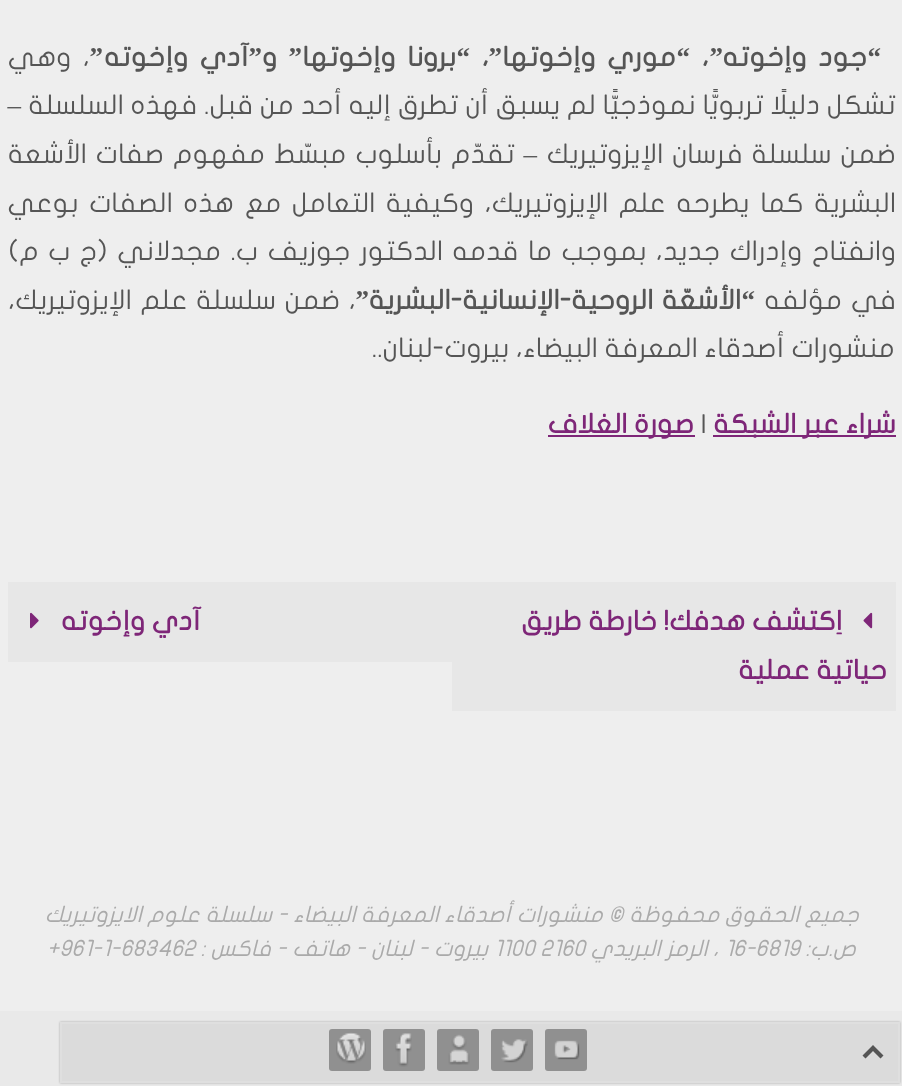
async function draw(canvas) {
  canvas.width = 902
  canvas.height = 1086
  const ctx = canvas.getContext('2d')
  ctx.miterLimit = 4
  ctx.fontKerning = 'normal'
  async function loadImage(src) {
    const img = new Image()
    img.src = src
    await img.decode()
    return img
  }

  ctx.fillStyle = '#eee'
  ctx.fillRect(0, 0, 902, 1086)
  ctx.direction = 'rtl'
  ctx.font = 'bold 27px Liberation Serif'
  ctx.fillStyle = '#555'
  ctx.fillText('“', 881, 66)
  ctx.wordSpacing = '5px'
  ctx.font = 'bold 27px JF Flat'
  ctx.fillText('جود وإخوته', 867, 66)
  ctx.wordSpacing = '0px'
  ctx.font = 'bold 27px Liberation Serif'
  ctx.fillText('”', 723, 66)
  ctx.font = 'bold 27px JF Flat'
  ctx.fillText('،', 709, 66)
  ctx.font = 'bold 27px Liberation Serif'
  ctx.fillText('“', 690, 66)
  ctx.wordSpacing = '5px'
  ctx.font = 'bold 27px JF Flat'
  ctx.fillText('موري وإخوتها', 676, 66)
  ctx.wordSpacing = '0px'
  ctx.font = 'bold 27px Liberation Serif'
  ctx.fillText('”', 502, 66)
  ctx.font = 'bold 27px JF Flat'
  ctx.fillText('،', 489, 66)
  ctx.font = 'bold 27px Liberation Serif'
  ctx.fillText('“', 470, 66)
  ctx.wordSpacing = '5px'
  ctx.font = 'bold 27px JF Flat'
  ctx.fillText('برونا وإخوتها', 456, 66)
  ctx.wordSpacing = '0px'
  ctx.font = 'bold 27px Liberation Serif'
  ctx.fillText('”', 302, 66)
  ctx.font = 'bold 27px JF Flat'
  ctx.fillText('و', 277, 66)
  ctx.font = 'bold 27px Liberation Serif'
  ctx.fillText('”', 262, 66)
  ctx.wordSpacing = '5px'
  ctx.font = 'bold 27px JF Flat'
  ctx.fillText('آدي وإخوته', 249, 66)
  ctx.wordSpacing = '0px'
  ctx.font = 'bold 27px Liberation Serif'
  ctx.fillText('”', 103, 66)
  ctx.wordSpacing = '5px'
  ctx.font = '27px JF Flat'
  ctx.fillText('، وهي', 90, 66)
  ctx.wordSpacing = '0.25px'
  ctx.fillText('تشكل دليلًا تربويًّا نموذجيًّا لم يسبق أن تطرق إليه أحد من قبل. فهذه السلسلة', 896, 114)
  ctx.wordSpacing = '0px'
  ctx.font = '27px Liberation Serif'
  ctx.fillText('–', 21, 114)
  ctx.wordSpacing = '2.25px'
  ctx.font = '27px JF Flat'
  ctx.fillText('ضمن سلسلة فرسان الإيزوتيريك', 896, 163)
  ctx.wordSpacing = '0px'
  ctx.font = '27px Liberation Serif'
  ctx.fillText('–', 537, 163)
  ctx.wordSpacing = '2.25px'
  ctx.font = '27px JF Flat'
  ctx.fillText('تقدّم بأسلوب مبسّط مفهوم صفات الأشعة', 515, 163)
  ctx.wordSpacing = '3.9px'
  ctx.fillText('البشرية كما يطرحه علم الإيزوتيريك، وكيفية التعامل مع هذه الصفات بوعي', 896, 212)
  ctx.wordSpacing = '2.75px'
  ctx.fillText('وانفتاح وإدراك جديد، بموجب ما قدمه الدكتور جوزيف ب. مجدلاني (ج ب م)', 896, 260)
  ctx.wordSpacing = '2px'
  ctx.fillText('في مؤلفه', 896, 309)
  ctx.wordSpacing = '0px'
  ctx.font = 'bold 27px Liberation Serif'
  ctx.fillText('“', 755, 309)
  ctx.wordSpacing = '2px'
  ctx.font = 'bold 27px JF Flat'
  ctx.fillText('الأشعّة الروحية-الإنسانية-البشرية', 741, 309)
  ctx.wordSpacing = '0px'
  ctx.font = 'bold 27px Liberation Serif'
  ctx.fillText('”', 369, 309)
  ctx.wordSpacing = '2px'
  ctx.font = '27px JF Flat'
  ctx.fillText('، ضمن سلسلة علم الإيزوتيريك،', 356, 309)
  ctx.wordSpacing = '0px'
  ctx.fillText('منشورات أصدقاء المعرفة البيضاء، بيروت-لبنان..', 895, 357)
  ctx.fillStyle = '#7e2678'
  ctx.fillRect(713, 435, 183, 2)
  ctx.font = 'bold 27px JF Flat'
  ctx.fillText('شراء عبر الشبكة', 896, 433)
  ctx.direction = 'ltr'
  ctx.font = '27px JF Flat'
  ctx.fillStyle = '#555'
  ctx.fillText('|', 701, 433)
  ctx.fillStyle = '#7e2678'
  ctx.fillRect(548, 435, 147, 2)
  ctx.direction = 'rtl'
  ctx.font = 'bold 27px JF Flat'
  ctx.fillText('صورة الغلاف', 694, 433)
  ctx.fillStyle = '#e7e7e7'
  ctx.fillRect(452, 582, 444, 129)
  ctx.drawImage(await loadImage('image0.png'), 863, 612, 10, 17)
  ctx.fillStyle = '#7e2678'
  ctx.fillText('اِكتشف هدفك! خارطة طريق', 842, 630)
  ctx.fillText('حياتية عملية', 887, 679)
  ctx.fillStyle = '#e7e7e7'
  ctx.fillRect(8, 582, 444, 80)
  ctx.fillStyle = '#7e2678'
  ctx.fillText('آدي وإخوته', 201, 630)
  ctx.drawImage(await loadImage('image1.png'), 30, 612, 9, 17)
  ctx.font = 'italic 22.5px JF Flat'
  ctx.fillStyle = '#aaa'
  ctx.fillText('جميع الحقوق محفوظة © منشورات أصدقاء المعرفة البيضاء - سلسلة علوم الايزوتيريك', 859, 922)
  ctx.fillText('ص.ب:', 856, 956)
  ctx.direction = 'ltr'
  ctx.fillText('16-6819', 725, 956)
  ctx.direction = 'rtl'
  ctx.fillText('، الرمز البريدي', 719, 956)
  ctx.direction = 'ltr'
  ctx.fillText('1100 2160', 494, 956)
  ctx.direction = 'rtl'
  ctx.fillText('بيروت - لبنان - هاتف - فاكس :', 488, 956)
  ctx.direction = 'ltr'
  ctx.fillText('+961-1-683462', 47, 956)
  ctx.fillStyle = '#e9e9e9'
  ctx.fillRect(0, 1011, 902, 75)
  ctx.fillStyle = '#dbdbdb'
  ctx.fillRect(62, 1024, 836, 57)
  ctx.fillStyle = '#909090'
  ctx.beginPath()
  ctx.roundRect(545, 1029, 42, 42, 3)
  ctx.fill()
  ctx.drawImage(await loadImage('image2.png'), 554, 1040, 26, 20)
  ctx.beginPath()
  ctx.roundRect(491, 1029, 42, 42, 3)
  ctx.fill()
  ctx.drawImage(await loadImage('image3.png'), 501, 1039, 27, 24)
  ctx.beginPath()
  ctx.roundRect(437, 1029, 42, 42, 3)
  ctx.fill()
  ctx.drawImage(await loadImage('image4.png'), 448, 1034, 22, 31)
  ctx.beginPath()
  ctx.roundRect(383, 1029, 42, 42, 3)
  ctx.fill()
  ctx.drawImage(await loadImage('image5.png'), 395, 1033, 17, 34)
  ctx.beginPath()
  ctx.roundRect(329, 1029, 42, 42, 3)
  ctx.fill()
  ctx.drawImage(await loadImage('image6.png'), 336, 1032, 30, 32)
  ctx.save()
  ctx.beginPath()
  ctx.moveTo(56, 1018)
  ctx.lineTo(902, 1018)
  ctx.lineTo(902, 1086)
  ctx.lineTo(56, 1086)
  ctx.closePath()
  ctx.moveTo(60, 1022)
  ctx.lineTo(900, 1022)
  ctx.lineTo(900, 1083)
  ctx.lineTo(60, 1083)
  ctx.closePath()
  ctx.clip('evenodd')
  ctx.fillStyle = '#00000047'
  ctx.filter = 'blur(1px)'
  ctx.beginPath()
  ctx.rect(60, 1022, 840, 61)
  ctx.fill()
  ctx.filter = 'none'
  ctx.restore()
  ctx.strokeStyle = '#dfdfdf'
  ctx.lineWidth = 2
  ctx.strokeRect(61, 1023, 838, 59)
  ctx.fillStyle = '#555'
  ctx.beginPath()
  ctx.moveTo(862.5, 1055.5)
  ctx.lineTo(873, 1045)
  ctx.lineTo(883.5, 1055.5)
  ctx.lineTo(880.5, 1058.5)
  ctx.lineTo(873, 1051)
  ctx.lineTo(865.5, 1058.5)
  ctx.closePath()
  ctx.fill()
}

draw(document.querySelector('canvas'))
